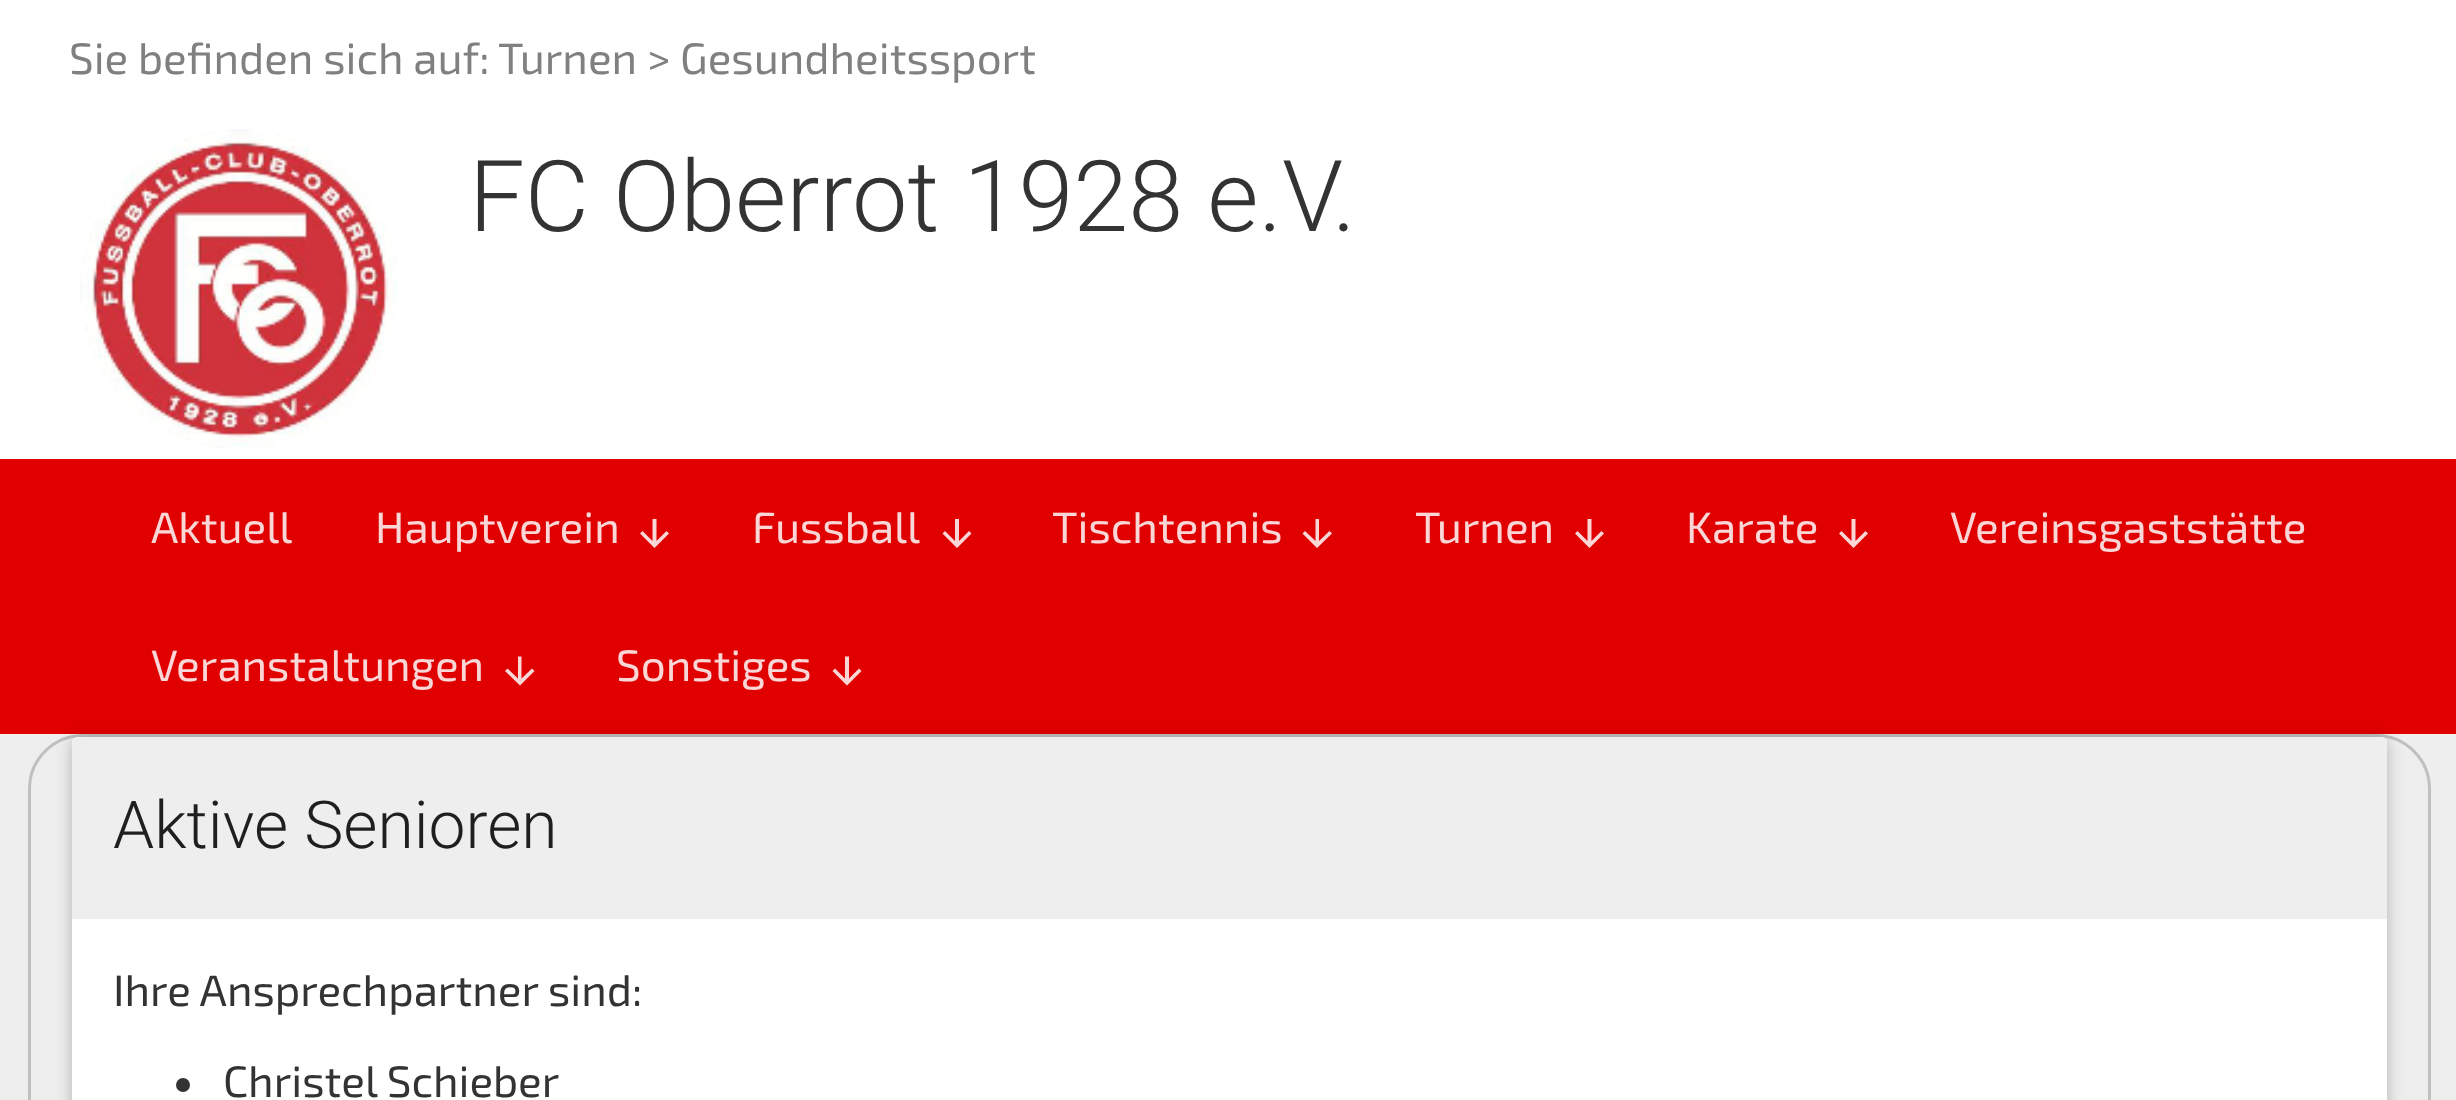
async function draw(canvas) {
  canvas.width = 2456
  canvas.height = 1100
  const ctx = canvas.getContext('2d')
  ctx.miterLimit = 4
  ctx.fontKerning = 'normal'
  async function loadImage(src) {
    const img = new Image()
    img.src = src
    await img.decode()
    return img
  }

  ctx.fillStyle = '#eee'
  ctx.fillRect(0, 0, 2456, 1100)
  ctx.fillStyle = '#fff'
  ctx.fillRect(0, 0, 2456, 459)
  ctx.font = '44px "Exo 2"'
  ctx.fillStyle = '#808080'
  ctx.fillText('Sie befinden sich auf:', 69, 74)
  ctx.fillText('Turnen > Gesundheitssport', 498, 74)
  ctx.drawImage(await loadImage('image0.png'), 79, 129, 319, 319)
  ctx.font = '300 99px Roboto'
  ctx.fillStyle = '#333'
  ctx.fillText('FC Oberrot 1928 e.V.', 469, 231)
  ctx.fillStyle = '#e00000'
  ctx.fillRect(0, 459, 2456, 275)
  ctx.font = '44px "Exo 2"'
  ctx.fillStyle = '#fad6d6'
  ctx.fillText('Aktuell', 151, 543)
  ctx.fillText('Hauptverein', 375, 543)
  ctx.beginPath()
  ctx.moveTo(669, 533.5)
  ctx.lineTo(654.5, 548)
  ctx.lineTo(640, 533.5)
  ctx.lineTo(642.5, 531)
  ctx.lineTo(652.5, 541)
  ctx.lineTo(652.5, 519)
  ctx.lineTo(656.5, 519)
  ctx.lineTo(656.5, 541)
  ctx.lineTo(666.5, 531)
  ctx.closePath()
  ctx.fill()
  ctx.fillText('Fussball', 752, 543)
  ctx.beginPath()
  ctx.moveTo(971.5, 533.5)
  ctx.lineTo(957, 548)
  ctx.lineTo(942.5, 533.5)
  ctx.lineTo(945, 531)
  ctx.lineTo(955, 541)
  ctx.lineTo(955, 519)
  ctx.lineTo(959, 519)
  ctx.lineTo(959, 541)
  ctx.lineTo(969, 531)
  ctx.closePath()
  ctx.fill()
  ctx.fillText('Tischtennis', 1052, 543)
  ctx.beginPath()
  ctx.moveTo(1332, 533.5)
  ctx.lineTo(1317, 548)
  ctx.lineTo(1302.5, 533.5)
  ctx.lineTo(1305, 531)
  ctx.lineTo(1315.5, 541)
  ctx.lineTo(1315.5, 519)
  ctx.lineTo(1319, 519)
  ctx.lineTo(1319, 541)
  ctx.lineTo(1329.5, 531)
  ctx.closePath()
  ctx.fill()
  ctx.fillText('Turnen', 1415, 543)
  ctx.beginPath()
  ctx.moveTo(1604, 533.5)
  ctx.lineTo(1589.5, 548)
  ctx.lineTo(1575, 533.5)
  ctx.lineTo(1577.5, 531)
  ctx.lineTo(1587.5, 541)
  ctx.lineTo(1587.5, 519)
  ctx.lineTo(1591.5, 519)
  ctx.lineTo(1591.5, 541)
  ctx.lineTo(1601.5, 531)
  ctx.closePath()
  ctx.fill()
  ctx.fillText('Karate', 1686, 543)
  ctx.beginPath()
  ctx.moveTo(1868, 533.5)
  ctx.lineTo(1853.5, 548)
  ctx.lineTo(1839, 533.5)
  ctx.lineTo(1841.5, 531)
  ctx.lineTo(1851.5, 541)
  ctx.lineTo(1851.5, 519)
  ctx.lineTo(1855.5, 519)
  ctx.lineTo(1855.5, 541)
  ctx.lineTo(1865.5, 531)
  ctx.closePath()
  ctx.fill()
  ctx.fillText('Vereinsgaststätte', 1950, 543)
  ctx.fillText('Veranstaltungen', 151, 681)
  ctx.beginPath()
  ctx.moveTo(534.5, 671)
  ctx.lineTo(520, 685.5)
  ctx.lineTo(505, 671)
  ctx.lineTo(507.5, 668.5)
  ctx.lineTo(518, 678.5)
  ctx.lineTo(518, 656.5)
  ctx.lineTo(521.5, 656.5)
  ctx.lineTo(521.5, 678.5)
  ctx.lineTo(532, 668.5)
  ctx.closePath()
  ctx.fill()
  ctx.fillText('Sonstiges', 616, 681)
  ctx.beginPath()
  ctx.moveTo(861.5, 671)
  ctx.lineTo(847, 685.5)
  ctx.lineTo(832.5, 671)
  ctx.lineTo(835, 668.5)
  ctx.lineTo(845, 678.5)
  ctx.lineTo(845, 656.5)
  ctx.lineTo(849, 656.5)
  ctx.lineTo(849, 678.5)
  ctx.lineTo(859, 668.5)
  ctx.closePath()
  ctx.fill()
  ctx.beginPath()
  ctx.roundRect(29.5, 735.5, 2400, 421, 53.5)
  ctx.strokeStyle = '#c0c0c0'
  ctx.lineWidth = 3
  ctx.stroke()
  ctx.fillStyle = '#0000001f'
  ctx.filter = 'blur(8px)'
  ctx.beginPath()
  ctx.roundRect(72, 740, 2315, 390, 6)
  ctx.fill()
  ctx.filter = 'none'
  ctx.filter = 'blur(8px)'
  ctx.beginPath()
  ctx.roundRect(72, 740, 2315, 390, 6)
  ctx.fill()
  ctx.filter = 'none'
  ctx.fillStyle = '#fff'
  ctx.beginPath()
  ctx.roundRect(72, 737, 2315, 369, 6)
  ctx.fill()
  ctx.fillStyle = '#eee'
  ctx.beginPath()
  ctx.roundRect(72, 737, 2315, 182, [8, 8, 0, 0])
  ctx.fill()
  ctx.font = '300 66px Roboto'
  ctx.fillStyle = '#1f1f1f'
  ctx.fillText('Aktive Senioren', 113, 848)
  ctx.font = '44px "Exo 2"'
  ctx.fillStyle = '#333'
  ctx.fillText('Ihre Ansprechpartner sind:', 113, 1006)
  ctx.beginPath()
  ctx.arc(183, 1085, 7, 0, 2 * Math.PI)
  ctx.fill()
  ctx.fillText('Christel Schieber', 223, 1097)
}

draw(document.querySelector('canvas'))
